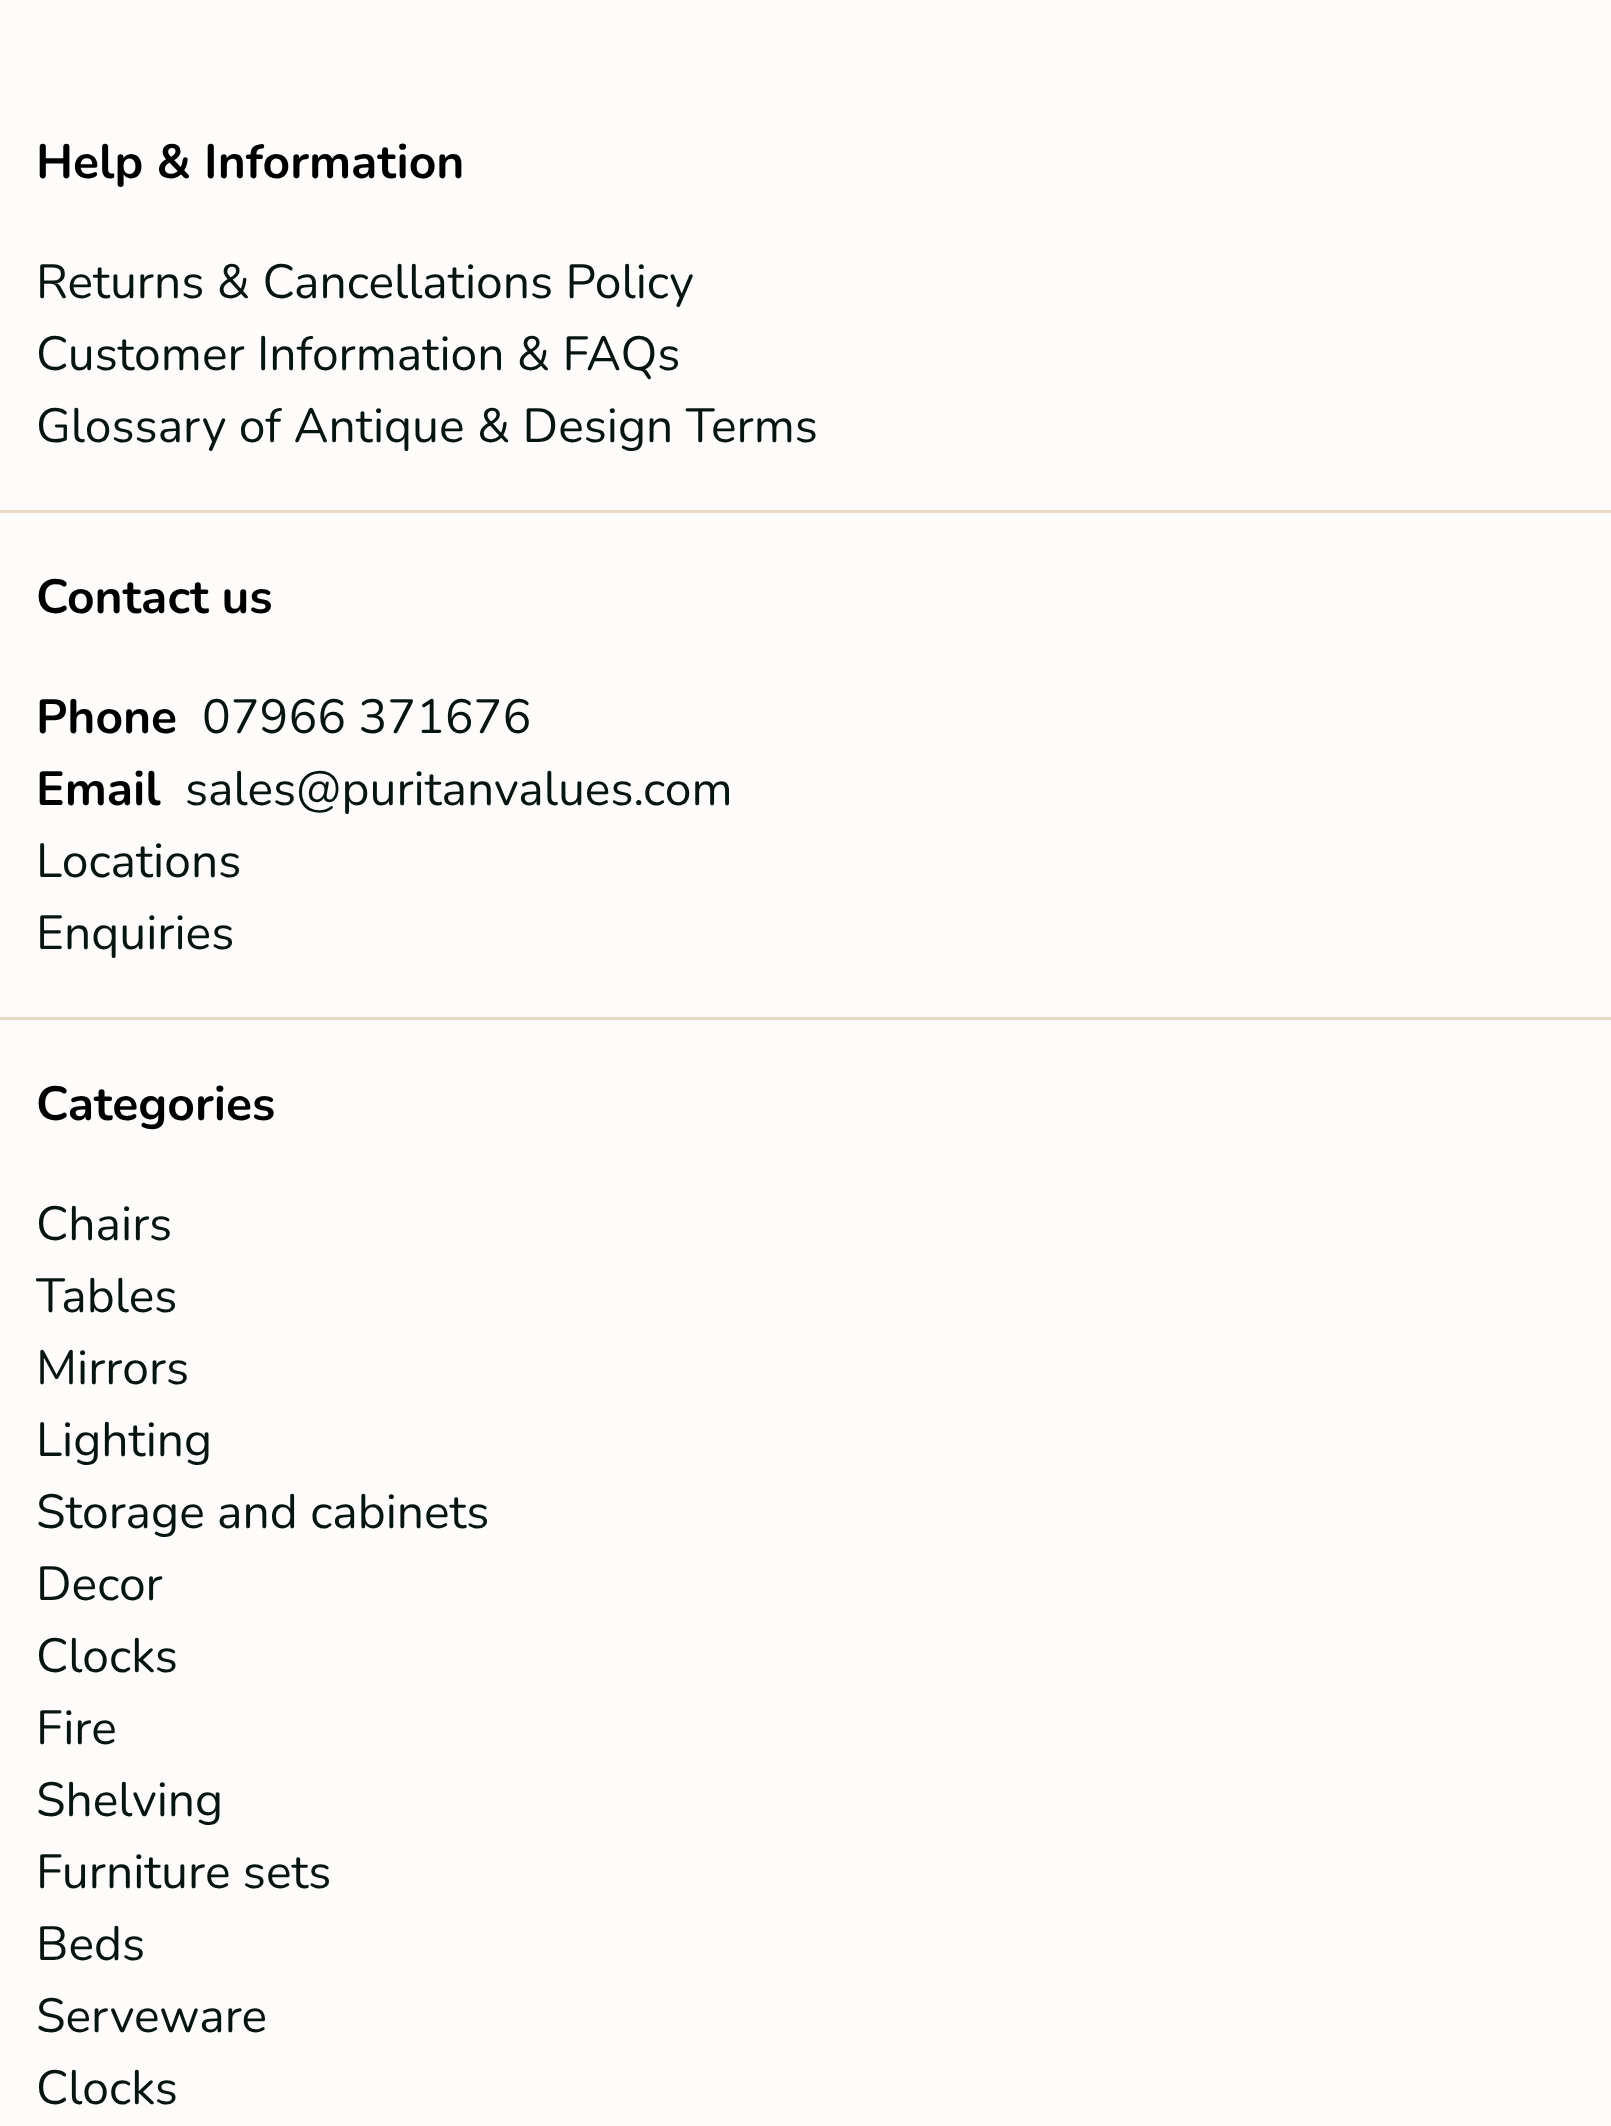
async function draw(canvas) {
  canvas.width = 1611
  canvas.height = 2126
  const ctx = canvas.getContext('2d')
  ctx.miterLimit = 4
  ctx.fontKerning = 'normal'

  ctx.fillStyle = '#fdfcfa'
  ctx.fillRect(0, 0, 1611, 2126)
  ctx.fillStyle = '#e8dbc2'
  ctx.fillRect(0, 510, 1611, 3)
  ctx.font = 'bold 48px Nunito'
  ctx.fillStyle = '#000'
  ctx.fillText('Help & Information', 36, 178)
  ctx.font = '48px Nunito'
  ctx.fillStyle = '#071510'
  ctx.fillText('Returns & Cancellations Policy', 36, 298)
  ctx.fillText('Customer Information & FAQs', 36, 370)
  ctx.fillText('Glossary of Antique & Design Terms', 36, 442)
  ctx.fillStyle = '#e8dbc2'
  ctx.fillRect(0, 1017, 1611, 3)
  ctx.font = 'bold 48px Nunito'
  ctx.fillStyle = '#000'
  ctx.fillText('Contact us', 36, 613)
  ctx.fillText('Phone', 36, 733)
  ctx.font = '48px Nunito'
  ctx.fillStyle = '#071510'
  ctx.fillText('07966 371676', 202, 733)
  ctx.font = 'bold 48px Nunito'
  ctx.fillStyle = '#000'
  ctx.fillText('Email', 36, 805)
  ctx.font = '48px Nunito'
  ctx.fillStyle = '#071510'
  ctx.fillText('sales@puritanvalues.com', 185, 805)
  ctx.fillText('Locations', 36, 877)
  ctx.fillText('Enquiries', 36, 949)
  ctx.font = 'bold 48px Nunito'
  ctx.fillStyle = '#000'
  ctx.fillText('Categories', 36, 1120)
  ctx.font = '48px Nunito'
  ctx.fillStyle = '#071510'
  ctx.fillText('Chairs', 36, 1240)
  ctx.fillText('Tables', 36, 1312)
  ctx.fillText('Mirrors', 36, 1384)
  ctx.fillText('Lighting', 36, 1456)
  ctx.fillText('Storage and cabinets', 36, 1528)
  ctx.fillText('Decor', 36, 1600)
  ctx.fillText('Clocks', 36, 1672)
  ctx.fillText('Fire', 36, 1744)
  ctx.fillText('Shelving', 36, 1816)
  ctx.fillText('Furniture sets', 36, 1888)
  ctx.fillText('Beds', 36, 1960)
  ctx.fillText('Serveware', 36, 2032)
  ctx.fillText('Clocks', 36, 2104)
}

draw(document.querySelector('canvas'))
